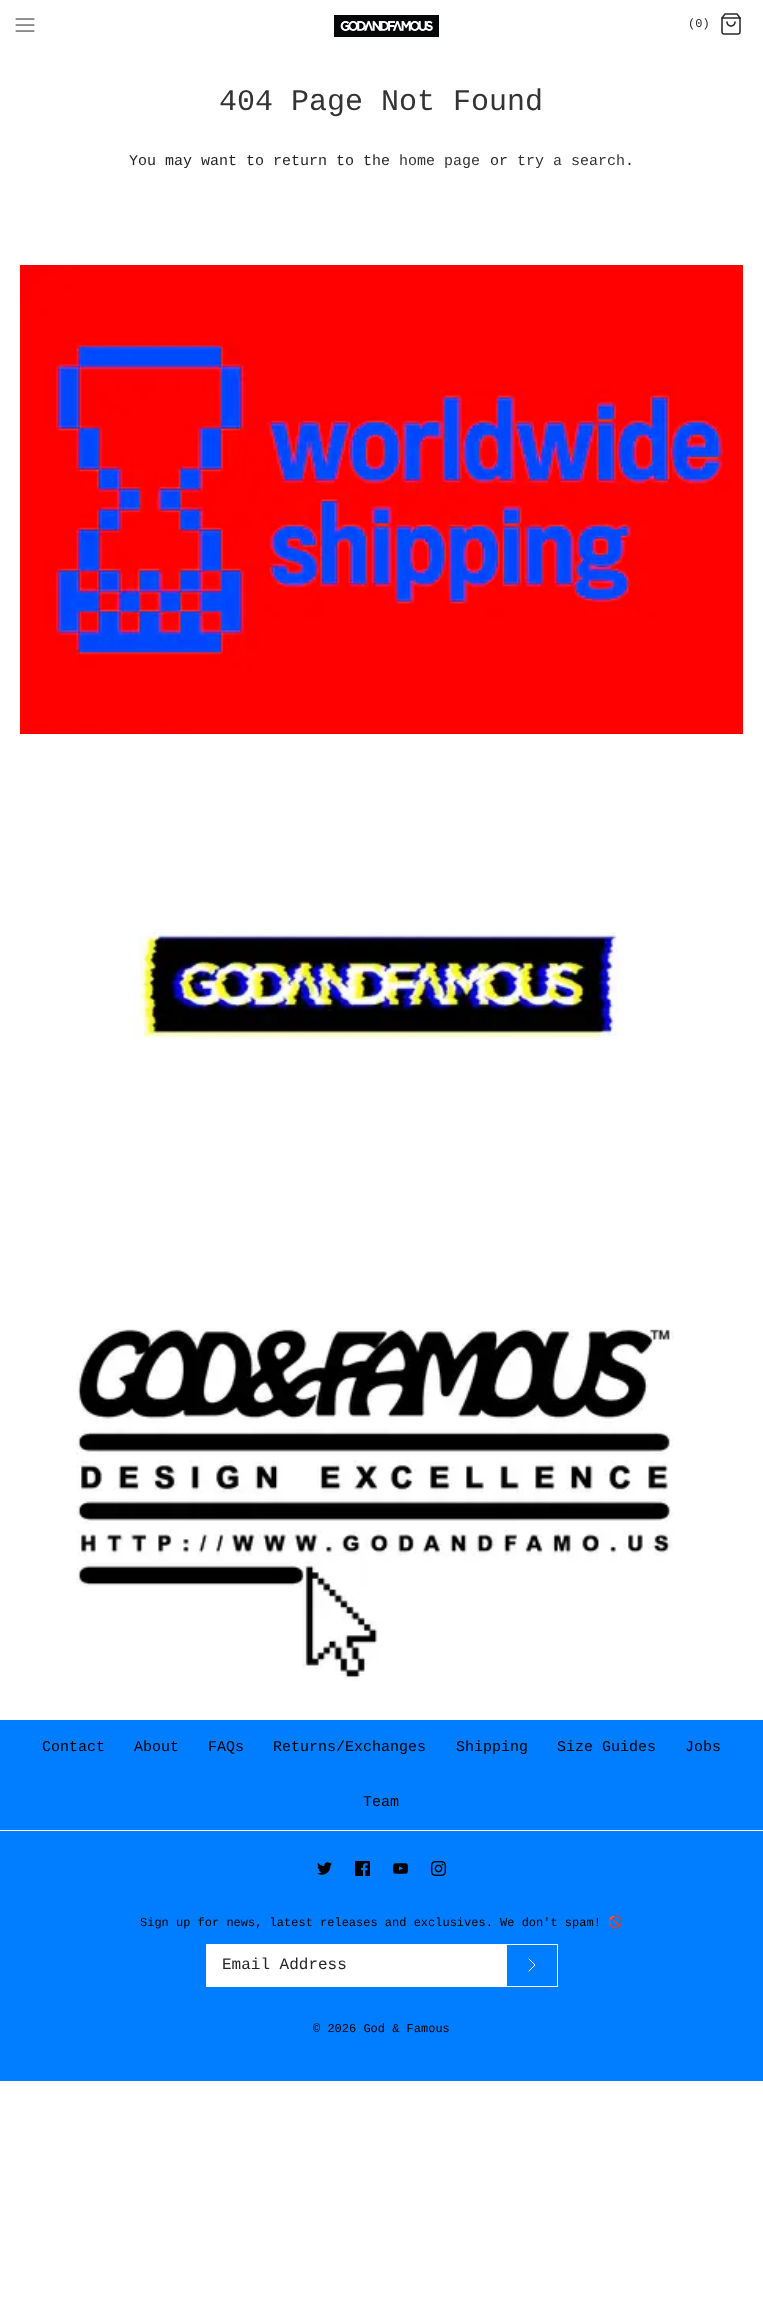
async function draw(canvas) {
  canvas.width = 763
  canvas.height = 2307
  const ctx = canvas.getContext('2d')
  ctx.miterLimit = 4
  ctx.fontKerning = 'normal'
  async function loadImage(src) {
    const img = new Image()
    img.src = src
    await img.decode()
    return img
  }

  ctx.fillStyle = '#fff'
  ctx.fillRect(0, 0, 763, 2307)
  ctx.drawImage(await loadImage('image0.png'), 15, 18, 20, 14)
  ctx.drawImage(await loadImage('image1.png'), 334, 15, 105, 22)
  ctx.font = '12px Liberation Mono'
  ctx.fillStyle = '#262626'
  ctx.fillText('(0)', 688, 27)
  ctx.drawImage(await loadImage('image2.png'), 721, 13, 20, 22)
  ctx.font = '30px Liberation Mono'
  ctx.fillStyle = '#333'
  ctx.fillText('404 Page Not Found', 219, 110)
  ctx.font = '15px Liberation Mono'
  ctx.fillStyle = '#262626'
  ctx.fillText('You may want to return to the', 129, 165)
  ctx.fillStyle = '#333'
  ctx.fillText('home page', 399, 165)
  ctx.fillStyle = '#262626'
  ctx.fillText('or', 490, 165)
  ctx.fillStyle = '#333'
  ctx.fillText('try a search', 517, 165)
  ctx.fillStyle = '#262626'
  ctx.fillText('.', 625, 165)
  ctx.fillStyle = '#007eff'
  ctx.fillRect(0, 1720, 763, 361)
  ctx.drawImage(await loadImage('image3.png'), 20, 265, 723, 469)
  ctx.drawImage(await loadImage('image4.png'), 132, 932, 492, 107)
  ctx.drawImage(await loadImage('image5.png'), 76, 1328, 598, 353)
  ctx.fillStyle = '#fff'
  ctx.fillRect(0, 1830, 763, 1)
  ctx.fillStyle = '#000'
  ctx.fillText('Contact', 42, 1751)
  ctx.fillText('About', 134, 1751)
  ctx.fillText('FAQs', 208, 1751)
  ctx.fillText('Returns/Exchanges', 273, 1751)
  ctx.fillText('Shipping', 456, 1751)
  ctx.fillText('Size Guides', 557, 1751)
  ctx.fillText('Jobs', 685, 1751)
  ctx.fillText('Team', 363, 1806)
  ctx.drawImage(await loadImage('image6.png'), 317, 1862, 15, 13)
  ctx.drawImage(await loadImage('image7.png'), 355, 1861, 15, 15)
  ctx.drawImage(await loadImage('image8.png'), 393, 1863, 15, 11)
  ctx.drawImage(await loadImage('image9.png'), 431, 1861, 15, 15)
  ctx.font = '12px Liberation Mono'
  ctx.fillText('Sign up for news, latest releases and exclusives. We don\'t spam!', 140, 1926)
  ctx.font = '12px Noto Color Emoji'
  ctx.fillText('🚫', 608, 1926)
  ctx.fillStyle = '#fff'
  ctx.fillRect(206, 1944, 352, 43)
  ctx.font = '16px Liberation Mono'
  ctx.fillStyle = '#262626'
  ctx.fillText('Email Address', 222, 1969)
  ctx.fillStyle = '#007eff'
  ctx.fillRect(507, 1945, 50, 41)
  ctx.beginPath()
  ctx.moveTo(529, 1971)
  ctx.lineTo(535, 1965)
  ctx.lineTo(529, 1959)
  ctx.strokeStyle = '#fff'
  ctx.lineCap = 'round'
  ctx.lineJoin = 'round'
  ctx.stroke()
  ctx.font = '12px Liberation Mono'
  ctx.fillStyle = '#000'
  ctx.fillText('© 2026 God & Famous', 313, 2032)
}

draw(document.querySelector('canvas'))
